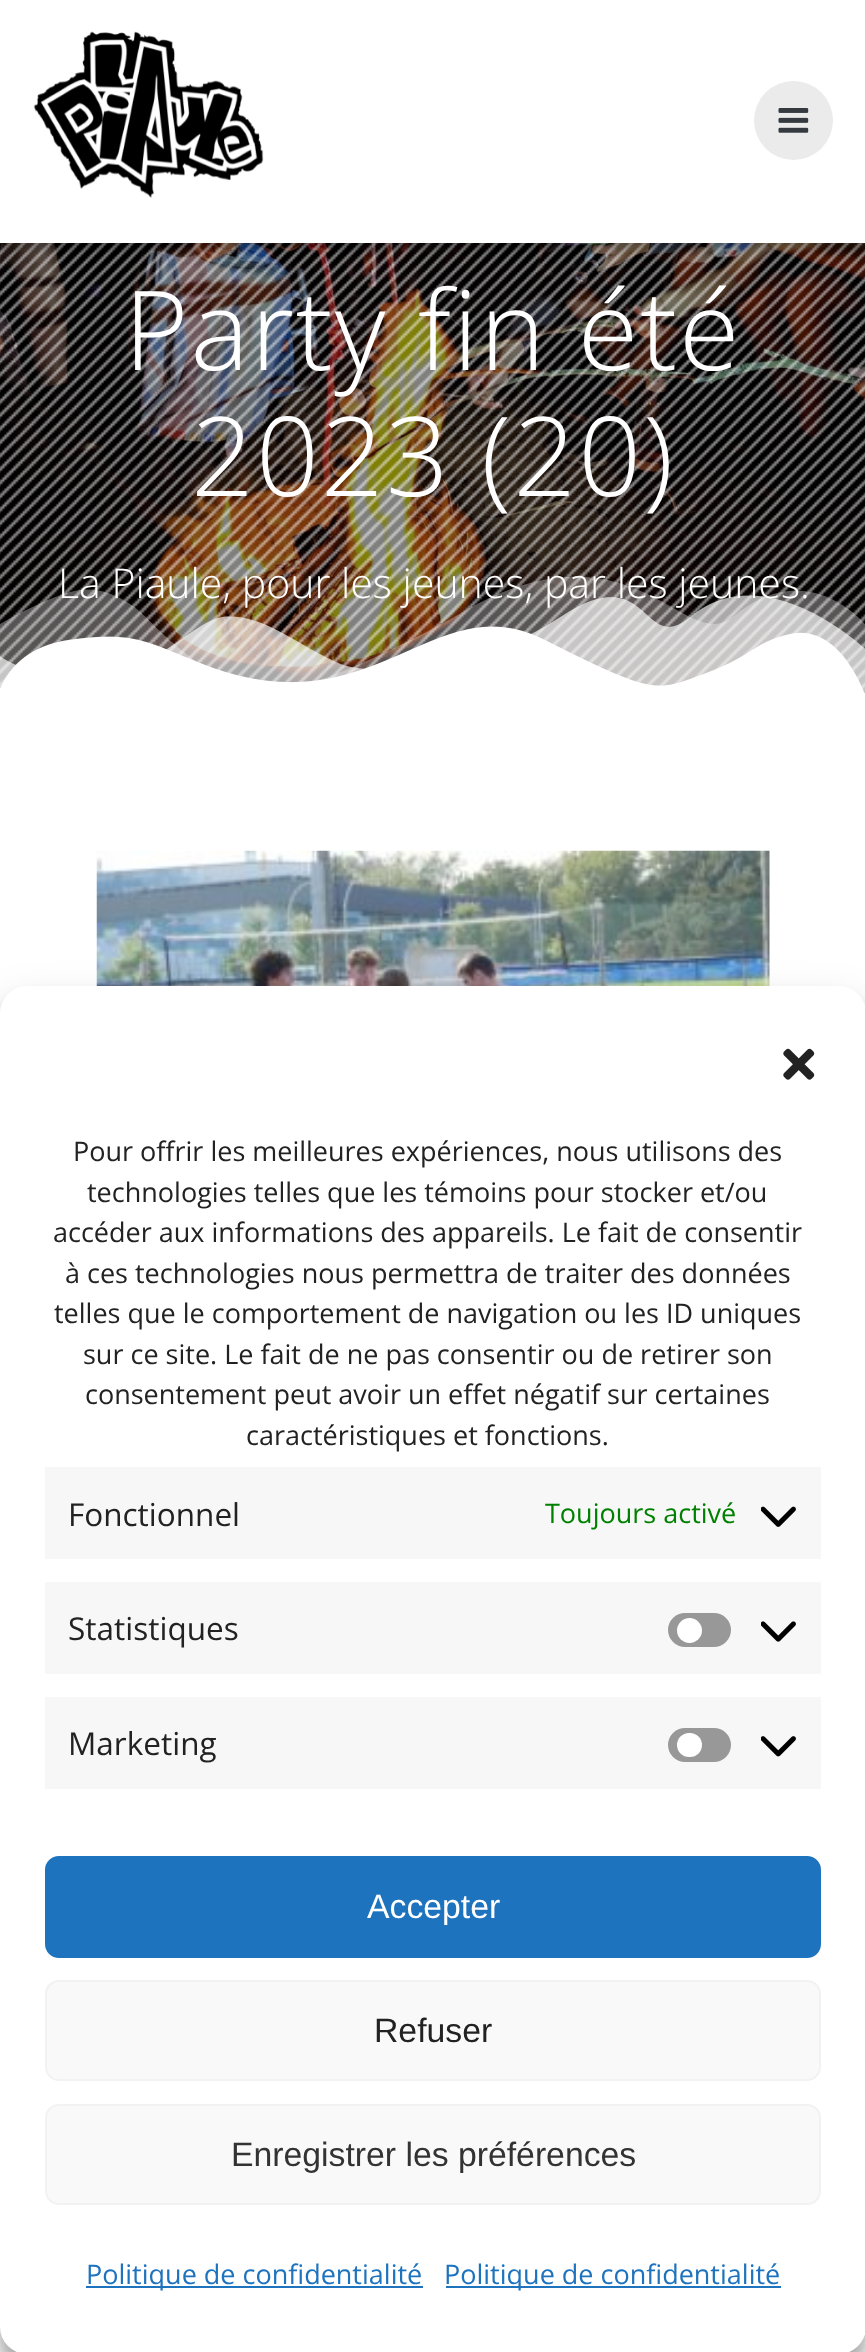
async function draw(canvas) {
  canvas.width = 865
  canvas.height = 2352
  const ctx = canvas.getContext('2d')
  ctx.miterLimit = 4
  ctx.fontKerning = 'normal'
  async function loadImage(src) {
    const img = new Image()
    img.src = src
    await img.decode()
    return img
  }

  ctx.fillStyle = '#fff'
  ctx.fillRect(0, 0, 865, 2352)
  ctx.drawImage(await loadImage('image2.png'), 0, 243, 865, 450)
  ctx.drawImage(await loadImage('image3.png'), 0, 243, 865, 447)
  ctx.fillStyle = '#00000054'
  ctx.filter = 'blur(5.5px)'
  ctx.beginPath()
  ctx.rect(-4, -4, 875, 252)
  ctx.fill()
  ctx.filter = 'none'
  ctx.fillStyle = '#fff'
  ctx.fillRect(0, 0, 865, 243)
  ctx.drawImage(await loadImage('image0.png'), 33, 31, 231, 167)
  ctx.fillStyle = '#ebebec'
  ctx.beginPath()
  ctx.arc(793.5, 120.5, 39.5, 0, 2 * Math.PI)
  ctx.fill()
  ctx.drawImage(await loadImage('image1.png'), 778, 108, 31, 25)
  ctx.letterSpacing = '2px'
  ctx.font = '300 110.25px Open Sans'
  ctx.fillStyle = '#fff'
  ctx.fillText('Party fin été', 124, 370)
  ctx.fillText('2023 (20)', 191, 496)
  ctx.drawImage(await loadImage('image4.png'), 0, 576, 865, 117)
  ctx.letterSpacing = '0px'
  ctx.font = '300 41px Open Sans'
  ctx.fillText('La Piaule, pour les jeunes, par les jeunes.', 58, 598)
  ctx.drawImage(await loadImage('image5.png'), 96, 850, 674, 136)
  ctx.fillStyle = '#0000003b'
  ctx.filter = 'blur(7px)'
  ctx.beginPath()
  ctx.roundRect(0, 999, 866, 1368, 27)
  ctx.fill()
  ctx.filter = 'none'
  ctx.fillStyle = '#00000030'
  ctx.filter = 'blur(22.5px)'
  ctx.beginPath()
  ctx.roundRect(0, 1008, 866, 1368, 27)
  ctx.fill()
  ctx.filter = 'none'
  ctx.fillStyle = '#fff'
  ctx.beginPath()
  ctx.roundRect(0, 986, 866, 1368, 27)
  ctx.fill()
  ctx.drawImage(await loadImage('image6.png'), 783, 1048, 32, 32)
  ctx.font = '27px Open Sans'
  ctx.fillStyle = '#222'
  ctx.fillText('Pour offrir les meilleures expériences, nous utilisons des', 73, 1161)
  ctx.fillText('technologies telles que les témoins pour stocker et/ou', 87, 1202)
  ctx.fillText('accéder aux informations des appareils. Le fait de consentir', 53, 1242)
  ctx.fillText('à ces technologies nous permettra de traiter des données', 65, 1283)
  ctx.fillText('telles que le comportement de navigation ou les ID uniques', 54, 1323)
  ctx.fillText('sur ce site. Le fait de ne pas consentir ou de retirer son', 83, 1364)
  ctx.fillText('consentement peut avoir un effet négatif sur certaines', 85, 1404)
  ctx.fillText('caractéristiques et fonctions.', 246, 1445)
  ctx.fillStyle = '#f7f7f7'
  ctx.fillRect(45, 1467, 776, 92)
  ctx.font = '31.5px Open Sans'
  ctx.fillStyle = '#222'
  ctx.fillText('Fonctionnel', 68, 1526)
  ctx.font = '27px Open Sans'
  ctx.fillStyle = '#008000'
  ctx.fillText('Toujours activé', 545, 1523)
  ctx.drawImage(await loadImage('image7.png'), 761, 1506, 35, 21)
  ctx.fillStyle = '#f7f7f7'
  ctx.fillRect(45, 1582, 776, 92)
  ctx.font = '31.5px Open Sans'
  ctx.fillStyle = '#222'
  ctx.fillText('Statistiques', 68, 1640)
  ctx.fillStyle = '#989898'
  ctx.beginPath()
  ctx.roundRect(668, 1613, 63, 34, 17)
  ctx.fill()
  ctx.fillStyle = '#fff'
  ctx.beginPath()
  ctx.arc(689.5, 1630.5, 12.5, 0, 2 * Math.PI)
  ctx.fill()
  ctx.drawImage(await loadImage('image8.png'), 761, 1621, 35, 21)
  ctx.fillStyle = '#f7f7f7'
  ctx.fillRect(45, 1697, 776, 92)
  ctx.fillStyle = '#222'
  ctx.fillText('Marketing', 68, 1755)
  ctx.fillStyle = '#989898'
  ctx.beginPath()
  ctx.roundRect(668, 1728, 63, 34, 17)
  ctx.fill()
  ctx.fillStyle = '#fff'
  ctx.beginPath()
  ctx.roundRect(677, 1733, 25, 24, 12)
  ctx.fill()
  ctx.drawImage(await loadImage('image9.png'), 761, 1736, 35, 21)
  ctx.fillStyle = '#1e73be'
  ctx.beginPath()
  ctx.roundRect(46, 1857, 774, 100, 13)
  ctx.fill()
  ctx.strokeStyle = '#1e73be'
  ctx.lineWidth = 2
  ctx.stroke()
  ctx.font = '33.75px Liberation Sans'
  ctx.fillStyle = '#fff'
  ctx.fillText('Accepter', 367, 1918)
  ctx.fillStyle = '#f9f9f9'
  ctx.beginPath()
  ctx.roundRect(46, 1981, 774, 99, 13)
  ctx.fill()
  ctx.strokeStyle = '#f2f2f2'
  ctx.stroke()
  ctx.fillStyle = '#222'
  ctx.fillText('Refuser', 374, 2042)
  ctx.fillStyle = '#f9f9f9'
  ctx.beginPath()
  ctx.roundRect(46, 2105, 774, 99, 13)
  ctx.fill()
  ctx.stroke()
  ctx.fillStyle = '#333'
  ctx.fillText('Enregistrer les préférences', 231, 2166)
  ctx.fillStyle = '#1e73be'
  ctx.fillRect(86, 2286, 337, 2)
  ctx.font = '27px Open Sans'
  ctx.fillText('Politique de confidentialité', 86, 2284)
  ctx.fillRect(446, 2286, 335, 2)
  ctx.fillText('Politique de confidentialité', 444, 2284)
}

draw(document.querySelector('canvas'))
